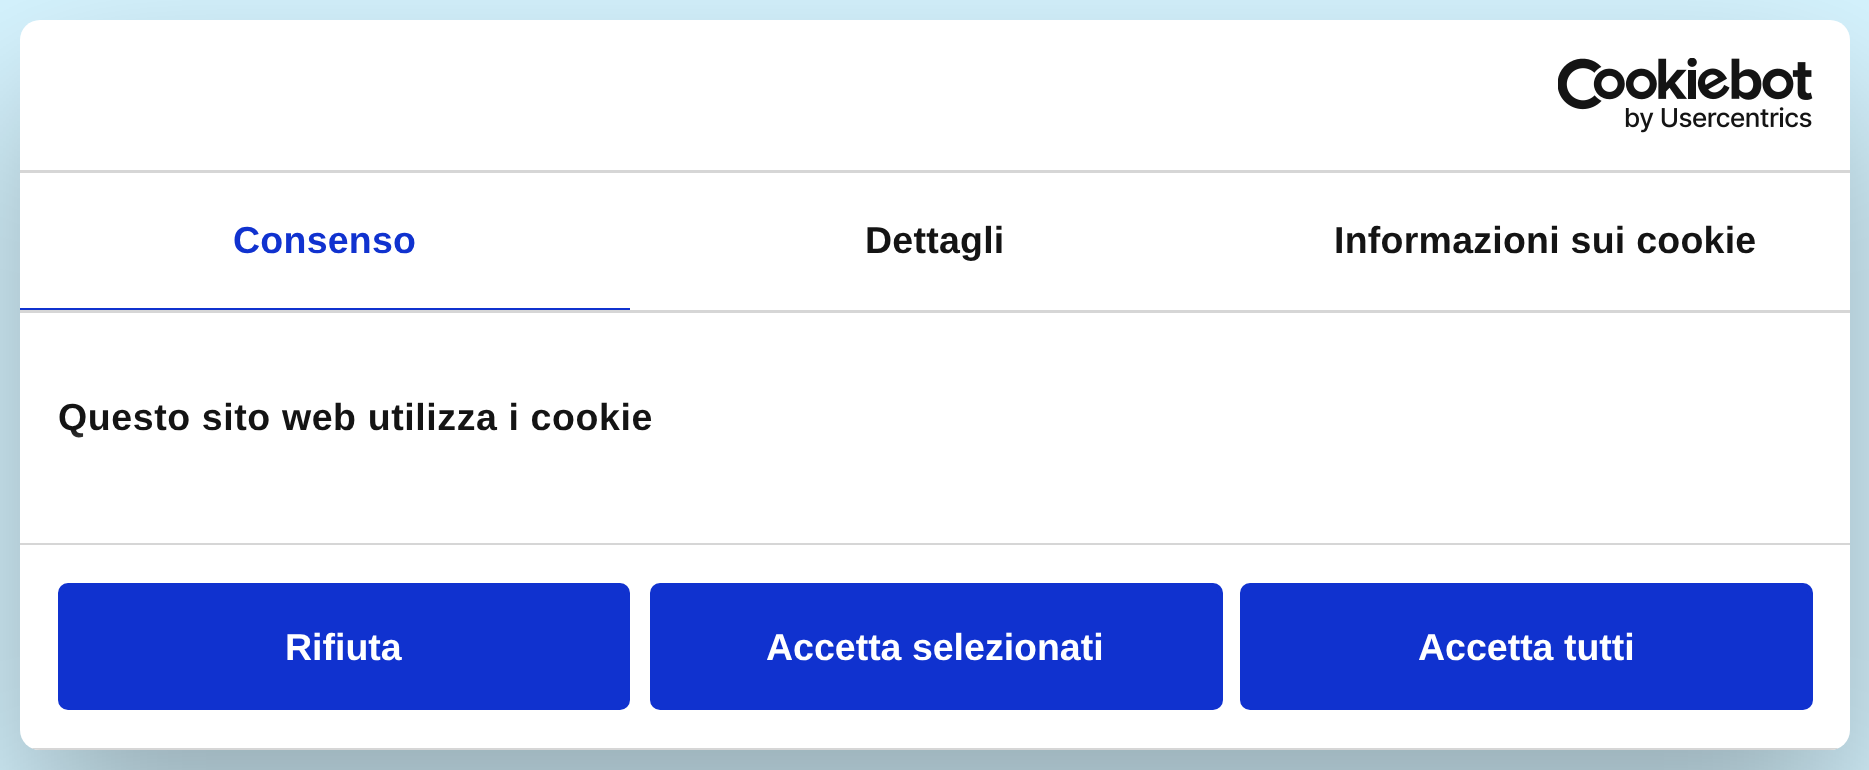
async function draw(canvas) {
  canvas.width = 1869
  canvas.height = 770
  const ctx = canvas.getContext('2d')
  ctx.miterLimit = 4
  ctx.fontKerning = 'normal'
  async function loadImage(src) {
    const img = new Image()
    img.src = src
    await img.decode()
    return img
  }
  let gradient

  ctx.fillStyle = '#d6f4ff'
  ctx.fillRect(0, 0, 1869, 770)
  ctx.fillStyle = '#0000004d'
  ctx.filter = 'blur(85px)'
  ctx.beginPath()
  ctx.roundRect(20, 100, 1830, 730, 20)
  ctx.fill()
  ctx.filter = 'none'
  ctx.fillStyle = '#fff'
  ctx.beginPath()
  ctx.roundRect(20, 20, 1830, 730, 20)
  ctx.fill()
  ctx.fillStyle = '#d6d6d6'
  ctx.fillRect(20, 170, 1830, 3)
  ctx.drawImage(await loadImage('image0.png'), 1558, 58, 255, 75)
  ctx.fillRect(20, 310, 1830, 3)
  ctx.fillStyle = '#1032cf'
  ctx.fillRect(20, 308, 610, 2)
  ctx.letterSpacing = '0.25px'
  ctx.font = 'bold 37.5px Liberation Sans'
  ctx.fillText('Consenso', 233, 253)
  ctx.fillStyle = '#141414'
  ctx.fillText('Dettagli', 865, 253)
  ctx.fillText('Informazioni sui cookie', 1334, 253)
  ctx.fillStyle = '#d6d6d6'
  ctx.fillRect(20, 543, 1830, 2)
  ctx.letterSpacing = '0.6px'
  ctx.fillStyle = '#141414'
  ctx.fillText('Questo sito web utilizza i cookie', 58, 430)
  gradient = ctx.createLinearGradient(919, 543, 919, 428)
  gradient.addColorStop(0, '#fff')
  gradient.addColorStop(0.5, '#ffffffcc')
  gradient.addColorStop(1, '#ffffff00')
  ctx.fillStyle = gradient
  ctx.fillRect(70, 430, 573, 8)
  ctx.save()
  ctx.beginPath()
  ctx.roundRect(20, 20, 1830, 730, 20)
  ctx.clip()
  ctx.fillStyle = '#d6d6d6'
  ctx.fillRect(31, 748, 1808, 2)
  ctx.restore()
  ctx.fillStyle = '#1032cf'
  ctx.beginPath()
  ctx.roundRect(60.5, 585.5, 567, 122, 7.5)
  ctx.fill()
  ctx.strokeStyle = '#1032cf'
  ctx.lineWidth = 5
  ctx.stroke()
  ctx.letterSpacing = '0px'
  ctx.fillStyle = '#fff'
  ctx.fillText('Rifiuta', 285, 660)
  ctx.fillStyle = '#1032cf'
  ctx.beginPath()
  ctx.roundRect(652.5, 585.5, 568, 122, 7.5)
  ctx.fill()
  ctx.stroke()
  ctx.fillStyle = '#fff'
  ctx.fillText('Accetta selezionati', 766, 660)
  ctx.fillStyle = '#1032cf'
  ctx.beginPath()
  ctx.roundRect(1242.5, 585.5, 568, 122, 7.5)
  ctx.fill()
  ctx.stroke()
  ctx.fillStyle = '#fff'
  ctx.fillText('Accetta tutti', 1418, 660)
}

draw(document.querySelector('canvas'))
